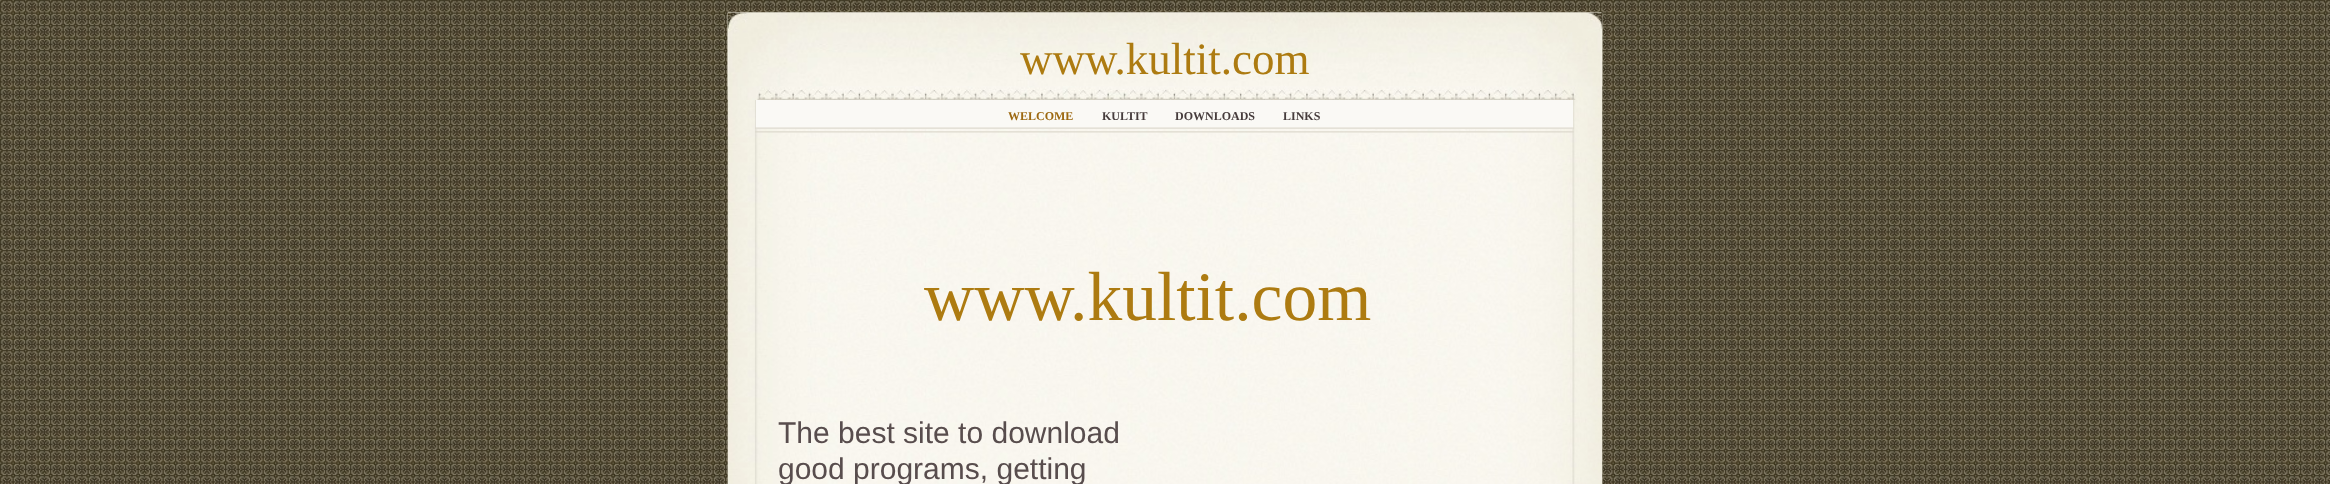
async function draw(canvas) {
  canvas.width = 2330
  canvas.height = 484
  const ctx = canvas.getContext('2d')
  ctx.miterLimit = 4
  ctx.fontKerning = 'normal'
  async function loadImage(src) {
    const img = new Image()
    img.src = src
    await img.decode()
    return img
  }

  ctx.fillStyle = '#fff'
  ctx.fillRect(0, 0, 2330, 484)
  ctx.drawImage(await loadImage('image0.png'), 0, 0, 2330, 484)
  ctx.drawImage(await loadImage('image1.png'), 727, 12, 876, 472)
  ctx.drawImage(await loadImage('image3.png'), 727, 12, 875, 88)
  ctx.drawImage(await loadImage('image2.png'), 727, 12, 876, 75)
  ctx.font = '45px Liberation Serif'
  ctx.fillStyle = '#ad7b11'
  ctx.fillText('www.kultit.com', 1020, 74)
  ctx.fillStyle = '#faf9f5'
  ctx.fillRect(756, 100, 817, 29)
  ctx.font = 'bold 12px Liberation Serif'
  ctx.fillStyle = '#9c6810'
  ctx.fillText('WELCOME', 1008, 120)
  ctx.fillStyle = '#463c3c'
  ctx.fillText('KULTIT', 1102, 120)
  ctx.fillText('DOWNLOADS', 1175, 120)
  ctx.fillText('LINKS', 1283, 120)
  ctx.drawImage(await loadImage('image4.png'), 755, 127, 819, 2)
  ctx.drawImage(await loadImage('image5.png'), 755, 131, 819, 2)
  ctx.font = '69.5px Liberation Serif'
  ctx.fillStyle = '#ad7b11'
  ctx.fillText('www.kultit.com', 924, 320)
  ctx.font = '30px Liberation Sans'
  ctx.fillStyle = '#584d4d'
  ctx.fillText('The best site to download', 778, 443)
  ctx.fillText('good programs, getting', 778, 479)
}

draw(document.querySelector('canvas'))
